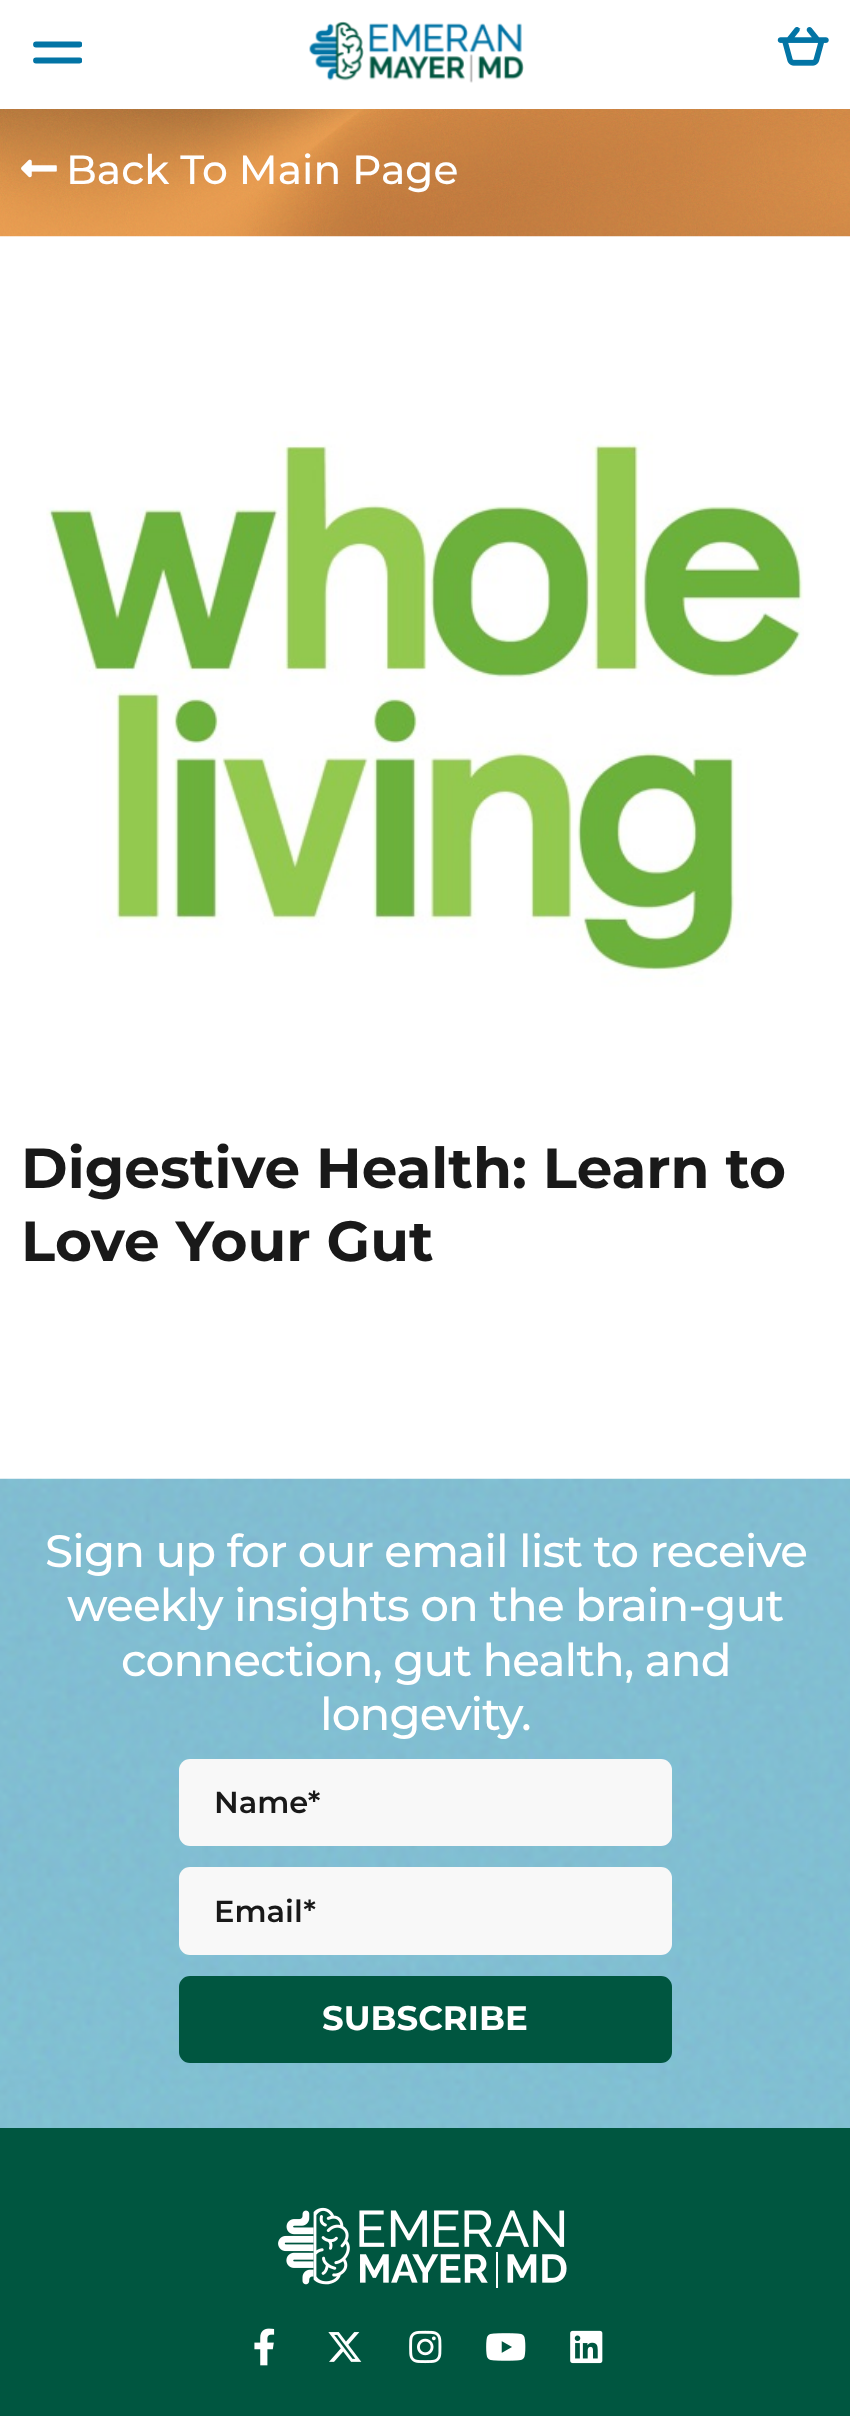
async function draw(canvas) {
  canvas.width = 850
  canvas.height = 2416
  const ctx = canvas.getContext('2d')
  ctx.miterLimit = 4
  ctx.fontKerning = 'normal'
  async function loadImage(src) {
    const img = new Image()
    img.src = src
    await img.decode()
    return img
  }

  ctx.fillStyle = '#fff'
  ctx.fillRect(0, 0, 850, 2416)
  ctx.save()
  ctx.beginPath()
  ctx.rect(33, 35, 49, 37)
  ctx.clip()
  ctx.beginPath()
  ctx.moveTo(36, 44.5)
  ctx.lineTo(79.5, 44.5)
  ctx.moveTo(36, 60.5)
  ctx.lineTo(79.5, 60.5)
  ctx.strokeStyle = '#0274a5'
  ctx.lineWidth = 5.8
  ctx.lineCap = 'round'
  ctx.stroke()
  ctx.restore()
  ctx.drawImage(await loadImage('image0.png'), 309, 21, 215, 62)
  ctx.drawImage(await loadImage('image1.png'), 777, 27, 52, 39)
  ctx.drawImage(await loadImage('image2.png'), 0, 109, 850, 128)
  ctx.drawImage(await loadImage('image3.png'), 21, 159, 36, 19)
  ctx.font = '500 40.75px Montserrat'
  ctx.fillText('Back To Main Page', 66, 184)
  ctx.drawImage(await loadImage('image4.png'), 46, 431, 758, 556)
  ctx.font = 'bold 56.5px Montserrat'
  ctx.fillStyle = '#191919'
  ctx.fillText('Digestive Health: Learn to', 21, 1188)
  ctx.fillText('Love Your Gut', 21, 1261)
  ctx.drawImage(await loadImage('image5.png'), 0, 1478, 850, 650)
  ctx.letterSpacing = '-0.9px'
  ctx.font = '500 45.25px Montserrat'
  ctx.fillStyle = '#fff'
  ctx.fillText('Sign up for our email list to receive', 45, 1567)
  ctx.fillText('weekly insights on the brain-gut', 67, 1621)
  ctx.fillText('connection, gut health, and', 121, 1676)
  ctx.fillText('longevity.', 320, 1730)
  ctx.fillStyle = '#f8f8f8'
  ctx.beginPath()
  ctx.roundRect(179, 1759, 493, 87, 11)
  ctx.fill()
  ctx.letterSpacing = '0px'
  ctx.font = '600 30.5px Montserrat'
  ctx.fillStyle = '#191919'
  ctx.fillText('Name*', 214, 1813)
  ctx.fillStyle = '#f8f8f8'
  ctx.beginPath()
  ctx.roundRect(179, 1867, 493, 88, 11)
  ctx.fill()
  ctx.fillStyle = '#191919'
  ctx.fillText('Email*', 214, 1922)
  ctx.fillStyle = '#005640'
  ctx.beginPath()
  ctx.roundRect(180, 1977, 491, 85, 10)
  ctx.fill()
  ctx.strokeStyle = '#005640'
  ctx.lineWidth = 2
  ctx.stroke()
  ctx.font = 'bold 34px Montserrat'
  ctx.fillStyle = '#fff'
  ctx.fillText('SUBSCRIBE', 322, 2030)
  ctx.fillStyle = '#005640'
  ctx.fillRect(0, 2128, 850, 288)
  ctx.drawImage(await loadImage('image6.png'), 278, 2207, 289, 81)
  ctx.drawImage(await loadImage('image7.png'), 254, 2328, 21, 38)
  ctx.drawImage(await loadImage('image8.png'), 328, 2332, 34, 30)
  ctx.drawImage(await loadImage('image9.png'), 409, 2330, 33, 34)
  ctx.drawImage(await loadImage('image10.png'), 486, 2333, 40, 28)
  ctx.drawImage(await loadImage('image11.png'), 570, 2330, 33, 34)
}

draw(document.querySelector('canvas'))
